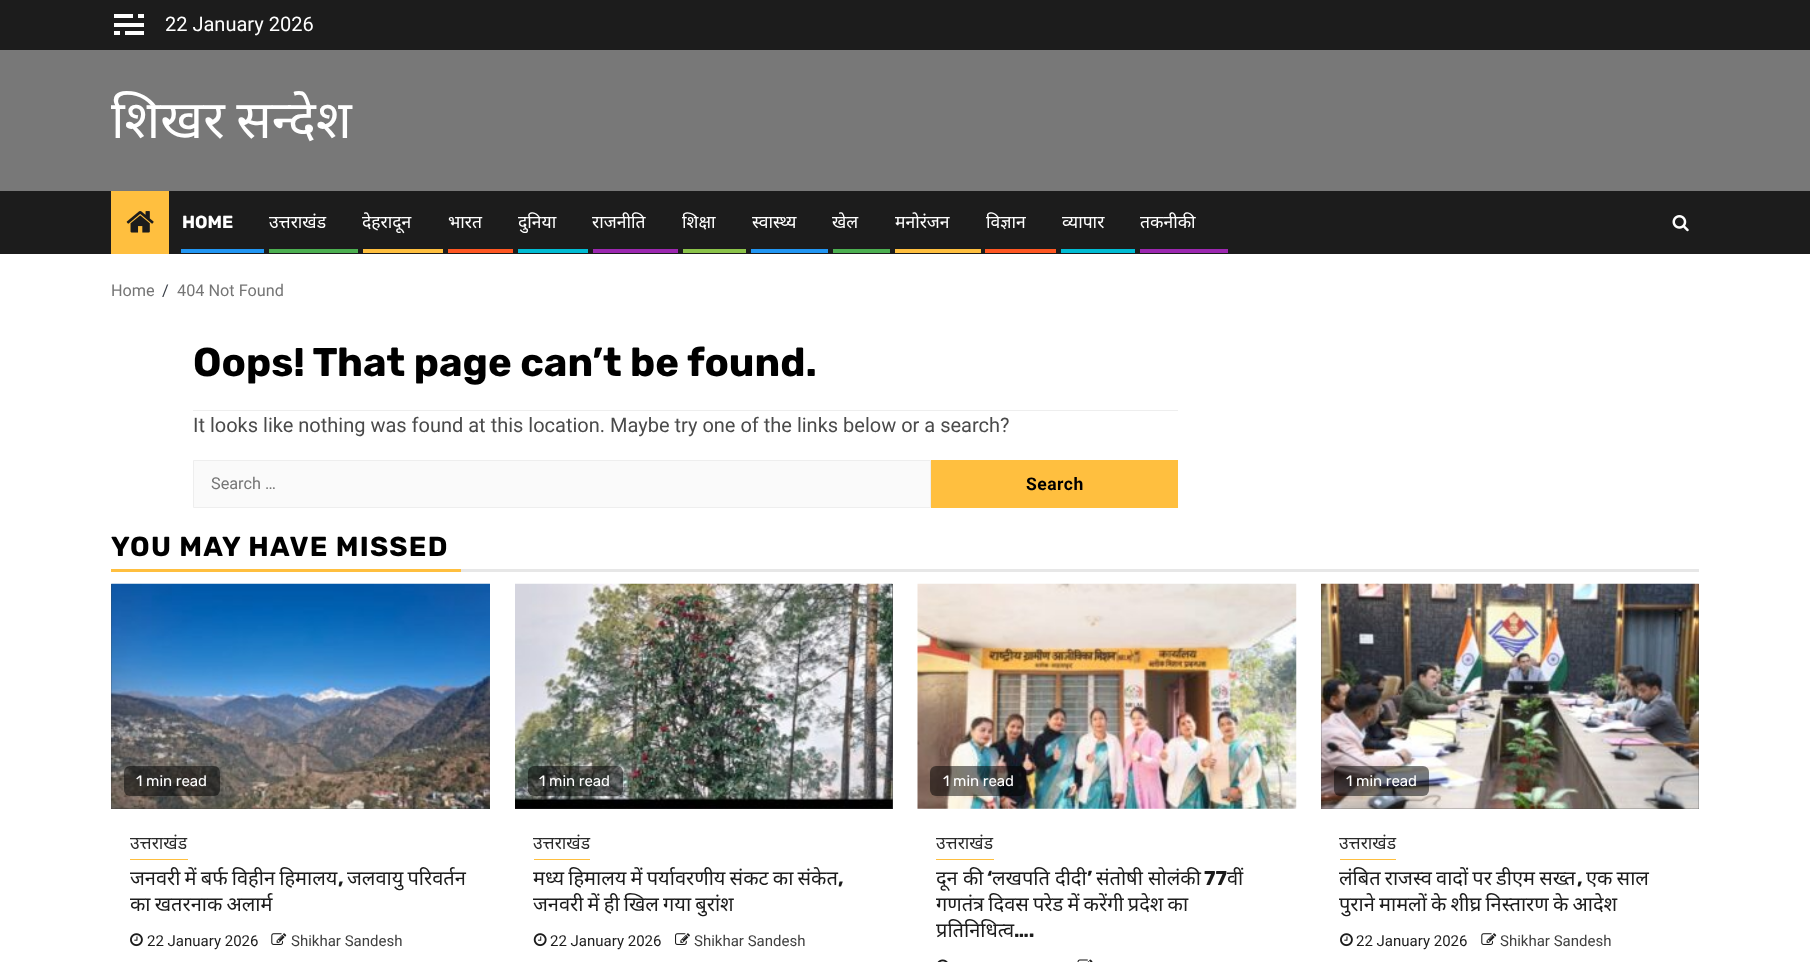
async function draw(canvas) {
  canvas.width = 1810
  canvas.height = 962
  const ctx = canvas.getContext('2d')
  ctx.miterLimit = 4
  ctx.fontKerning = 'normal'
  async function loadImage(src) {
    const img = new Image()
    img.src = src
    await img.decode()
    return img
  }

  ctx.fillStyle = '#fff'
  ctx.fillRect(0, 0, 1810, 962)
  ctx.fillStyle = '#1c1c1c'
  ctx.fillRect(0, 0, 1810, 50)
  ctx.fillStyle = '#fff'
  ctx.fillRect(138, 14, 6, 4)
  ctx.fillRect(114, 14, 19, 4)
  ctx.fillRect(114, 23, 30, 4)
  ctx.fillRect(125, 31, 19, 4)
  ctx.fillRect(114, 31, 6, 4)
  ctx.font = '20px Roboto'
  ctx.fillText('22 January 2026', 165, 31)
  ctx.fillStyle = '#787878'
  ctx.fillRect(0, 50, 1810, 141)
  ctx.wordSpacing = '-2px'
  ctx.font = '52.5px Noto Sans'
  ctx.fillStyle = '#fff'
  ctx.fillText('शिखर सन्देश', 111, 138)
  ctx.fillStyle = '#1c1c1c'
  ctx.fillRect(0, 191, 1810, 63)
  ctx.fillStyle = '#ffbf3f'
  ctx.fillRect(111, 191, 58, 63)
  ctx.drawImage(await loadImage('image0.png'), 126, 211, 28, 22)
  ctx.wordSpacing = '0px'
  ctx.font = 'bold 17.5px Rubik'
  ctx.fillStyle = '#fff'
  ctx.fillText('HOME', 182, 228)
  ctx.fillStyle = '#2196f3'
  ctx.fillRect(181, 249, 83, 4)
  ctx.font = '17.5px Noto Sans'
  ctx.fillStyle = '#fff'
  ctx.fillText('उत्तराखंड', 269, 228)
  ctx.fillStyle = '#4caf50'
  ctx.fillRect(269, 249, 89, 4)
  ctx.fillStyle = '#fff'
  ctx.fillText('देहरादून', 362, 228)
  ctx.fillStyle = '#ffbf3f'
  ctx.fillRect(363, 249, 80, 4)
  ctx.fillStyle = '#fff'
  ctx.fillText('भारत', 448, 228)
  ctx.fillStyle = '#ff5722'
  ctx.fillRect(448, 249, 65, 4)
  ctx.fillStyle = '#fff'
  ctx.fillText('दुनिया', 518, 228)
  ctx.fillStyle = '#00bcd4'
  ctx.fillRect(518, 249, 70, 4)
  ctx.fillStyle = '#fff'
  ctx.fillText('राजनीति', 592, 228)
  ctx.fillStyle = '#9c27b0'
  ctx.fillRect(593, 249, 85, 4)
  ctx.fillStyle = '#fff'
  ctx.fillText('शिक्षा', 682, 228)
  ctx.fillStyle = '#8bc34a'
  ctx.fillRect(683, 249, 63, 4)
  ctx.fillStyle = '#fff'
  ctx.fillText('स्वास्थ्य', 752, 228)
  ctx.fillStyle = '#2196f3'
  ctx.fillRect(751, 249, 77, 4)
  ctx.fillStyle = '#fff'
  ctx.fillText('खेल', 832, 228)
  ctx.fillStyle = '#4caf50'
  ctx.fillRect(833, 249, 57, 4)
  ctx.fillStyle = '#fff'
  ctx.fillText('मनोरंजन', 895, 228)
  ctx.fillStyle = '#ffbf3f'
  ctx.fillRect(895, 249, 86, 4)
  ctx.fillStyle = '#fff'
  ctx.fillText('विज्ञान', 986, 228)
  ctx.fillStyle = '#ff5722'
  ctx.fillRect(985, 249, 71, 4)
  ctx.fillStyle = '#fff'
  ctx.fillText('व्यापार', 1062, 228)
  ctx.fillStyle = '#00bcd4'
  ctx.fillRect(1061, 249, 74, 4)
  ctx.fillStyle = '#fff'
  ctx.fillText('तकनीकी', 1140, 228)
  ctx.fillStyle = '#9c27b0'
  ctx.fillRect(1140, 249, 88, 4)
  ctx.drawImage(await loadImage('image1.png'), 1672, 215, 17, 17)
  ctx.font = '16.25px Roboto'
  ctx.fillStyle = '#757575'
  ctx.fillText('Home', 111, 296)
  ctx.fillStyle = '#393e46'
  ctx.fillText('/', 162, 296)
  ctx.fillStyle = '#757575'
  ctx.fillText('404 Not Found', 177, 296)
  ctx.fillStyle = '#eee'
  ctx.fillRect(193, 410, 985, 1)
  ctx.font = 'bold 40px Rubik'
  ctx.fillStyle = '#000'
  ctx.fillText('Oops! That page can’t be found.', 193, 376)
  ctx.font = '20px Roboto'
  ctx.fillStyle = '#4a4a4a'
  ctx.fillText('It looks like nothing was found at this location. Maybe try one of the links below or a search?', 193, 432)
  ctx.fillStyle = '#fafafa'
  ctx.beginPath()
  ctx.rect(193.5, 460.5, 737, 47)
  ctx.fill()
  ctx.strokeStyle = '#eee'
  ctx.stroke()
  ctx.font = '16.25px Roboto'
  ctx.fillStyle = '#757575'
  ctx.fillText('Search …', 211, 489)
  ctx.fillStyle = '#ffbf3f'
  ctx.fillRect(931, 460, 247, 48)
  ctx.letterSpacing = '0.5px'
  ctx.font = 'bold 17.5px Roboto'
  ctx.fillStyle = '#000'
  ctx.fillText('Search', 1026, 490)
  ctx.fillStyle = '#ffbf3f'
  ctx.fillRect(111, 569, 350, 3)
  ctx.letterSpacing = '1.25px'
  ctx.font = 'bold 27.5px Rubik'
  ctx.fillStyle = '#000'
  ctx.fillText('YOU MAY HAVE MISSED', 111, 556)
  ctx.fillStyle = '#e7e7e7'
  ctx.fillRect(461, 569, 1238, 3)
  ctx.fillStyle = '#404040'
  ctx.fillRect(111, 584, 379, 225)
  ctx.drawImage(await loadImage('image2.png'), 111, 583, 379, 226)
  ctx.fillStyle = '#00000080'
  ctx.beginPath()
  ctx.roundRect(124, 766, 96, 30, 6)
  ctx.fill()
  ctx.letterSpacing = '0px'
  ctx.font = '15px Rubik'
  ctx.fillStyle = '#fff'
  ctx.fillText('1 min read', 136, 786)
  ctx.fillStyle = '#ffbf3f'
  ctx.fillRect(130, 859, 58, 1)
  ctx.font = '17.5px Noto Sans'
  ctx.fillStyle = '#2b2b2b'
  ctx.fillText('उत्तराखंड', 130, 849)
  ctx.wordSpacing = '-1px'
  ctx.font = '20px Noto Sans'
  ctx.fillStyle = '#1c1c1c'
  ctx.fillText('जनवरी में बर्फ विहीन हिमालय', 130, 885)
  ctx.wordSpacing = '0px'
  ctx.font = 'bold 20px Rubik'
  ctx.fillText(',', 338, 885)
  ctx.wordSpacing = '-1px'
  ctx.font = '20px Noto Sans'
  ctx.fillText('जलवायु परिवर्तन', 347, 885)
  ctx.fillText('का खतरनाक अलार्म', 130, 911)
  ctx.drawImage(await loadImage('image3.png'), 130, 933, 13, 14)
  ctx.wordSpacing = '0px'
  ctx.font = '15px Roboto'
  ctx.fillText('22 January 2026', 147, 946)
  ctx.drawImage(await loadImage('image4.png'), 271, 933, 16, 12)
  ctx.fillStyle = '#404040'
  ctx.fillText('Shikhar Sandesh', 291, 946)
  ctx.fillRect(515, 584, 378, 225)
  ctx.drawImage(await loadImage('image5.png'), 515, 583, 378, 226)
  ctx.fillStyle = '#00000080'
  ctx.beginPath()
  ctx.roundRect(528, 766, 95, 30, 6)
  ctx.fill()
  ctx.font = '15px Rubik'
  ctx.fillStyle = '#fff'
  ctx.fillText('1 min read', 539, 786)
  ctx.fillStyle = '#ffbf3f'
  ctx.fillRect(534, 859, 56, 1)
  ctx.font = '17.5px Noto Sans'
  ctx.fillStyle = '#2b2b2b'
  ctx.fillText('उत्तराखंड', 533, 849)
  ctx.wordSpacing = '-1px'
  ctx.font = '20px Noto Sans'
  ctx.fillStyle = '#1c1c1c'
  ctx.fillText('मध्य हिमालय में पर्यावरणीय संकट का संकेत', 533, 885)
  ctx.wordSpacing = '0px'
  ctx.font = 'bold 20px Rubik'
  ctx.fillText(',', 838, 885)
  ctx.wordSpacing = '-1px'
  ctx.font = '20px Noto Sans'
  ctx.fillText('जनवरी में ही खिल गया बुरांश', 533, 911)
  ctx.drawImage(await loadImage('image6.png'), 533, 933, 14, 14)
  ctx.wordSpacing = '0px'
  ctx.font = '15px Roboto'
  ctx.fillText('22 January 2026', 550, 946)
  ctx.drawImage(await loadImage('image7.png'), 675, 933, 15, 12)
  ctx.fillStyle = '#404040'
  ctx.fillText('Shikhar Sandesh', 694, 946)
  ctx.drawImage(await loadImage('image8.png'), 917, 583, 380, 226)
  ctx.fillStyle = '#00000080'
  ctx.beginPath()
  ctx.roundRect(930, 766, 96, 30, 6)
  ctx.fill()
  ctx.font = '15px Rubik'
  ctx.fillStyle = '#fff'
  ctx.fillText('1 min read', 943, 786)
  ctx.fillStyle = '#ffbf3f'
  ctx.fillRect(936, 859, 58, 1)
  ctx.font = '17.5px Noto Sans'
  ctx.fillStyle = '#2b2b2b'
  ctx.fillText('उत्तराखंड', 936, 849)
  ctx.font = '20px Noto Sans'
  ctx.fillStyle = '#1c1c1c'
  ctx.fillText('दून की', 936, 885)
  ctx.font = 'bold 20px Rubik'
  ctx.fillText('‘', 987, 885)
  ctx.font = '20px Noto Sans'
  ctx.fillText('लखपति दीदी', 992, 885)
  ctx.font = 'bold 20px Rubik'
  ctx.fillText('’', 1087, 885)
  ctx.font = '20px Noto Sans'
  ctx.fillText('संतोषी सोलंकी', 1096, 885)
  ctx.font = 'bold 20px Rubik'
  ctx.fillText('77', 1204, 885)
  ctx.font = '20px Noto Sans'
  ctx.fillText('वीं', 1227, 885)
  ctx.wordSpacing = '-1px'
  ctx.fillText('गणतंत्र दिवस परेड में करेंगी प्रदेश का', 936, 911)
  ctx.wordSpacing = '0px'
  ctx.fillText('प्रतिनिधित्व', 936, 937)
  ctx.font = 'bold 20px Rubik'
  ctx.fillText('….', 1014, 937)
  ctx.drawImage(await loadImage('image9.png'), 937, 959, 11, 3)
  ctx.drawImage(await loadImage('image10.png'), 1077, 959, 16, 3)
  ctx.fillStyle = '#404040'
  ctx.fillRect(1321, 584, 378, 225)
  ctx.drawImage(await loadImage('image11.png'), 1321, 583, 378, 226)
  ctx.fillStyle = '#00000080'
  ctx.beginPath()
  ctx.roundRect(1334, 766, 95, 30, 6)
  ctx.fill()
  ctx.font = '15px Rubik'
  ctx.fillStyle = '#fff'
  ctx.fillText('1 min read', 1346, 786)
  ctx.fillStyle = '#ffbf3f'
  ctx.fillRect(1340, 859, 56, 1)
  ctx.font = '17.5px Noto Sans'
  ctx.fillStyle = '#2b2b2b'
  ctx.fillText('उत्तराखंड', 1339, 849)
  ctx.wordSpacing = '-1px'
  ctx.font = '20px Noto Sans'
  ctx.fillStyle = '#1c1c1c'
  ctx.fillText('लंबित राजस्व वादों पर डीएम सख्त', 1339, 885)
  ctx.wordSpacing = '0px'
  ctx.font = 'bold 20px Rubik'
  ctx.fillText(',', 1577, 885)
  ctx.wordSpacing = '-1px'
  ctx.font = '20px Noto Sans'
  ctx.fillText('एक साल', 1586, 885)
  ctx.fillText('पुराने मामलों के शीघ्र निस्तारण के आदेश', 1339, 911)
  ctx.drawImage(await loadImage('image3.png'), 1340, 933, 13, 14)
  ctx.wordSpacing = '0px'
  ctx.font = '15px Roboto'
  ctx.fillText('22 January 2026', 1356, 946)
  ctx.drawImage(await loadImage('image4.png'), 1481, 933, 16, 12)
  ctx.fillStyle = '#404040'
  ctx.fillText('Shikhar Sandesh', 1500, 946)
}

draw(document.querySelector('canvas'))
